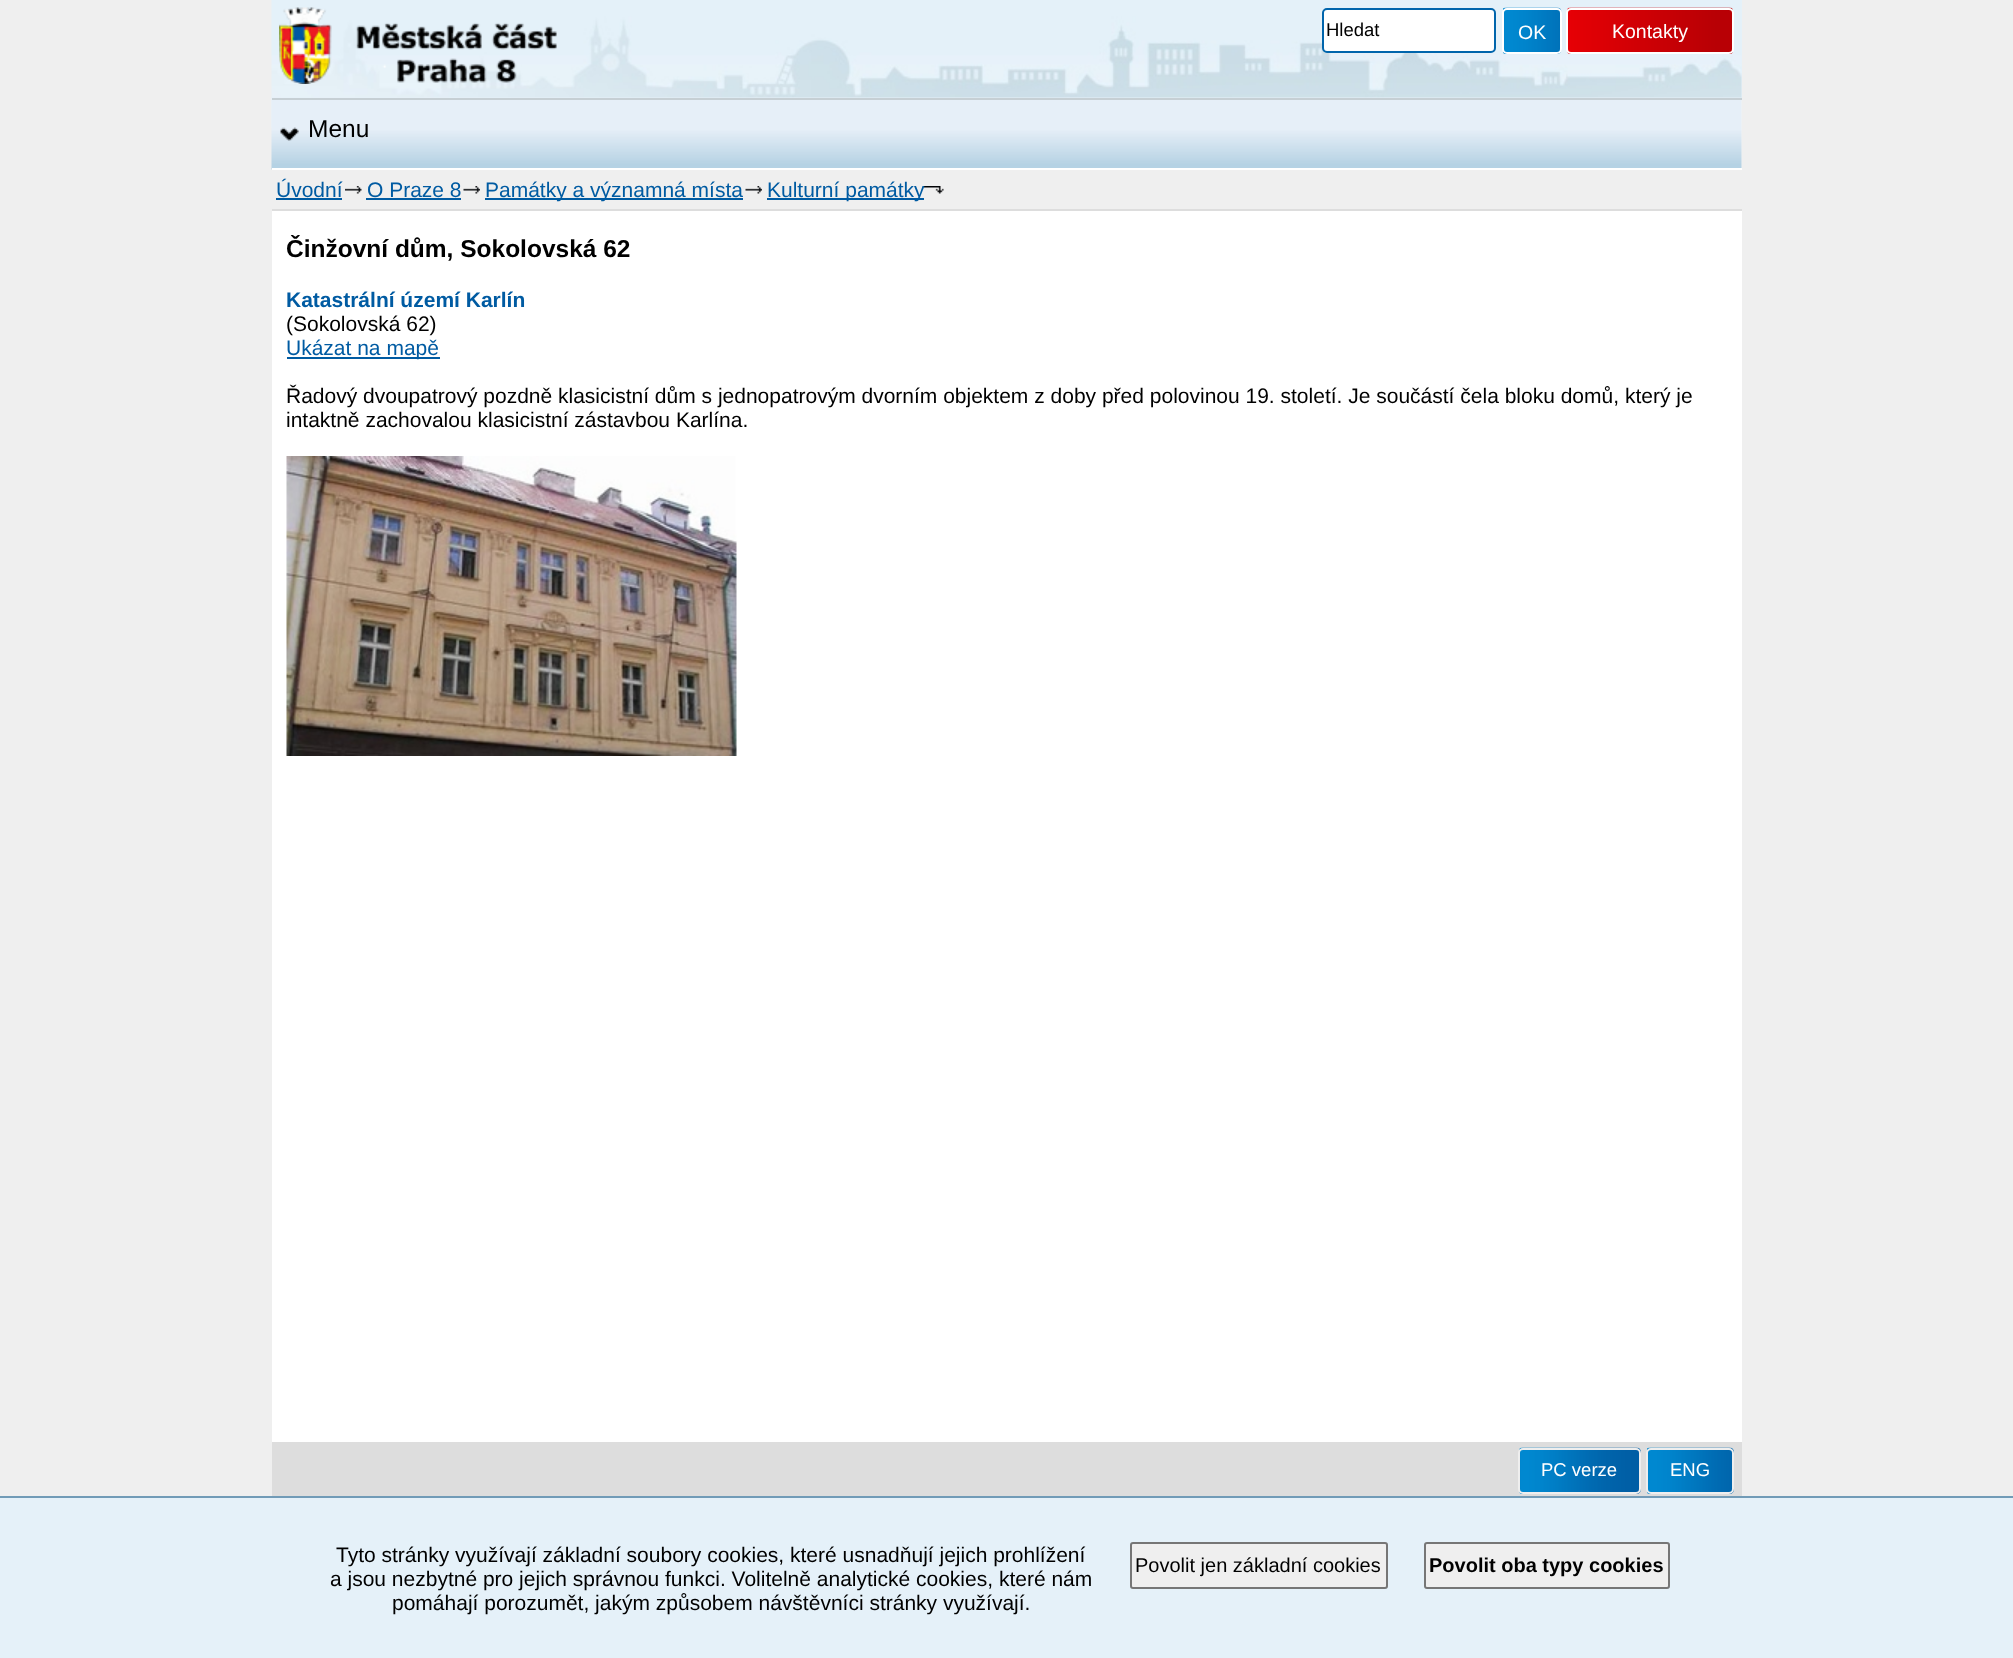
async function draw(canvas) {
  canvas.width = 2013
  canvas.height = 1658
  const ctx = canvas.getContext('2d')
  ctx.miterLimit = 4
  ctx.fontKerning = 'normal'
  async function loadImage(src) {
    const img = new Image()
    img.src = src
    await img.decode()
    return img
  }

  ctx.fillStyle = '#efefef'
  ctx.fillRect(0, 0, 2013, 1658)
  ctx.fillStyle = '#fff'
  ctx.fillRect(272, 211, 1470, 1231)
  ctx.fillStyle = '#e7f0f9'
  ctx.fillRect(1741, 0, 1, 98)
  ctx.drawImage(await loadImage('image0.png'), 271, 0, 1471, 128)
  ctx.drawImage(await loadImage('image1.png'), 279, 7, 278, 77)
  ctx.fillStyle = '#fff'
  ctx.beginPath()
  ctx.roundRect(1323, 9, 172, 43, 4)
  ctx.fill()
  ctx.strokeStyle = '#0065ac'
  ctx.lineWidth = 2
  ctx.stroke()
  ctx.font = '18.5px Liberation Sans'
  ctx.fillStyle = '#000'
  ctx.fillText('Hledat', 1326, 36)
  ctx.drawImage(await loadImage('image2.png'), 1503, 7, 59, 47)
  ctx.beginPath()
  ctx.roundRect(1503, 9, 58, 44, 4)
  ctx.strokeStyle = '#fff'
  ctx.stroke()
  ctx.font = '19.5px Liberation Sans'
  ctx.fillStyle = '#fff'
  ctx.fillText('OK', 1518, 39)
  ctx.drawImage(await loadImage('image3.png'), 1567, 7, 166, 47)
  ctx.beginPath()
  ctx.roundRect(1567, 9, 166, 44, 4)
  ctx.stroke()
  ctx.fillText('Kontakty', 1612, 38)
  ctx.fillStyle = '#f2f2f2'
  ctx.fillRect(1741, 100, 1, 68)
  ctx.drawImage(await loadImage('image4.png'), 271, 97, 1471, 73)
  ctx.drawImage(await loadImage('image5.png'), 280, 127, 19, 14)
  ctx.fillStyle = '#c6cfd4'
  ctx.fillRect(272, 98, 1470, 2)
  ctx.fillStyle = '#fff'
  ctx.fillRect(272, 168, 1470, 2)
  ctx.font = '24.5px Liberation Sans'
  ctx.fillStyle = '#000'
  ctx.fillText('Menu', 308, 137)
  ctx.fillStyle = '#ddd'
  ctx.fillRect(272, 209, 1470, 2)
  ctx.drawImage(await loadImage('image6.png'), 345, 186, 17, 8)
  ctx.font = '21px Liberation Sans'
  ctx.fillStyle = '#005ba2'
  ctx.fillText('Úvodní', 276, 197)
  ctx.fillRect(276, 198, 66, 2)
  ctx.drawImage(await loadImage('image7.png'), 463, 186, 17, 8)
  ctx.fillText('O Praze 8', 367, 197)
  ctx.fillRect(366, 198, 95, 2)
  ctx.drawImage(await loadImage('image8.png'), 745, 186, 17, 8)
  ctx.fillRect(485, 198, 258, 2)
  ctx.fillText('Památky a významná místa', 485, 197)
  ctx.drawImage(await loadImage('image9.png'), 924, 186, 20, 8)
  ctx.fillRect(767, 198, 157, 2)
  ctx.fillText('Kulturní památky', 767, 197)
  ctx.font = 'bold 24.5px Liberation Sans'
  ctx.fillStyle = '#000'
  ctx.fillText('Činžovní dům, Sokolovská 62', 286, 257)
  ctx.font = 'bold 21px Liberation Sans'
  ctx.fillStyle = '#005ba2'
  ctx.fillText('Katastrální území Karlín', 286, 307)
  ctx.font = '21px Liberation Sans'
  ctx.fillStyle = '#000'
  ctx.fillText('(Sokolovská 62)', 286, 331)
  ctx.fillStyle = '#005ba2'
  ctx.fillRect(287, 357, 153, 2)
  ctx.fillText('Ukázat na mapě', 286, 355)
  ctx.fillStyle = '#000'
  ctx.fillText('Řadový dvoupatrový pozdně klasicistní dům s jednopatrovým dvorním objektem z doby před polovinou 19. století. Je součástí čela bloku domů, který je', 286, 403)
  ctx.fillText('intaktně zachovalou klasicistní zástavbou Karlína.', 286, 427)
  ctx.drawImage(await loadImage('image10.png'), 286, 456, 451, 300)
  ctx.fillStyle = '#ddd'
  ctx.fillRect(272, 1442, 1470, 54)
  ctx.drawImage(await loadImage('image11.png'), 1519, 1447, 122, 47)
  ctx.beginPath()
  ctx.roundRect(1519, 1449, 121, 44, 4)
  ctx.strokeStyle = '#eee'
  ctx.stroke()
  ctx.font = '18.5px Liberation Sans'
  ctx.fillStyle = '#fff'
  ctx.fillText('PC verze', 1541, 1476)
  ctx.drawImage(await loadImage('image12.png'), 1647, 1447, 87, 47)
  ctx.beginPath()
  ctx.roundRect(1647, 1449, 86, 44, 4)
  ctx.stroke()
  ctx.fillText('ENG', 1670, 1476)
  ctx.fillStyle = '#e5f1f9'
  ctx.fillRect(0, 1498, 2013, 160)
  ctx.fillStyle = '#719bb7'
  ctx.fillRect(0, 1496, 2013, 2)
  ctx.font = '21px Liberation Sans'
  ctx.fillStyle = '#000'
  ctx.fillText('Tyto stránky využívají základní soubory cookies, které usnadňují jejich prohlížení', 336, 1562)
  ctx.fillText('a jsou nezbytné pro jejich správnou funkci. Volitelně analytické cookies, které nám', 330, 1586)
  ctx.fillText('pomáhají porozumět, jakým způsobem návštěvníci stránky využívají.', 392, 1610)
  ctx.fillStyle = '#efefef'
  ctx.beginPath()
  ctx.roundRect(1131, 1543, 256, 45, 2)
  ctx.fill()
  ctx.strokeStyle = '#767676'
  ctx.stroke()
  ctx.font = '20px Liberation Sans'
  ctx.fillStyle = '#000'
  ctx.fillText('Povolit jen základní cookies', 1135, 1572)
  ctx.fillStyle = '#efefef'
  ctx.beginPath()
  ctx.roundRect(1425, 1543, 244, 45, 2)
  ctx.fill()
  ctx.stroke()
  ctx.font = 'bold 20px Liberation Sans'
  ctx.fillStyle = '#000'
  ctx.fillText('Povolit oba typy cookies', 1429, 1572)
}

draw(document.querySelector('canvas'))
